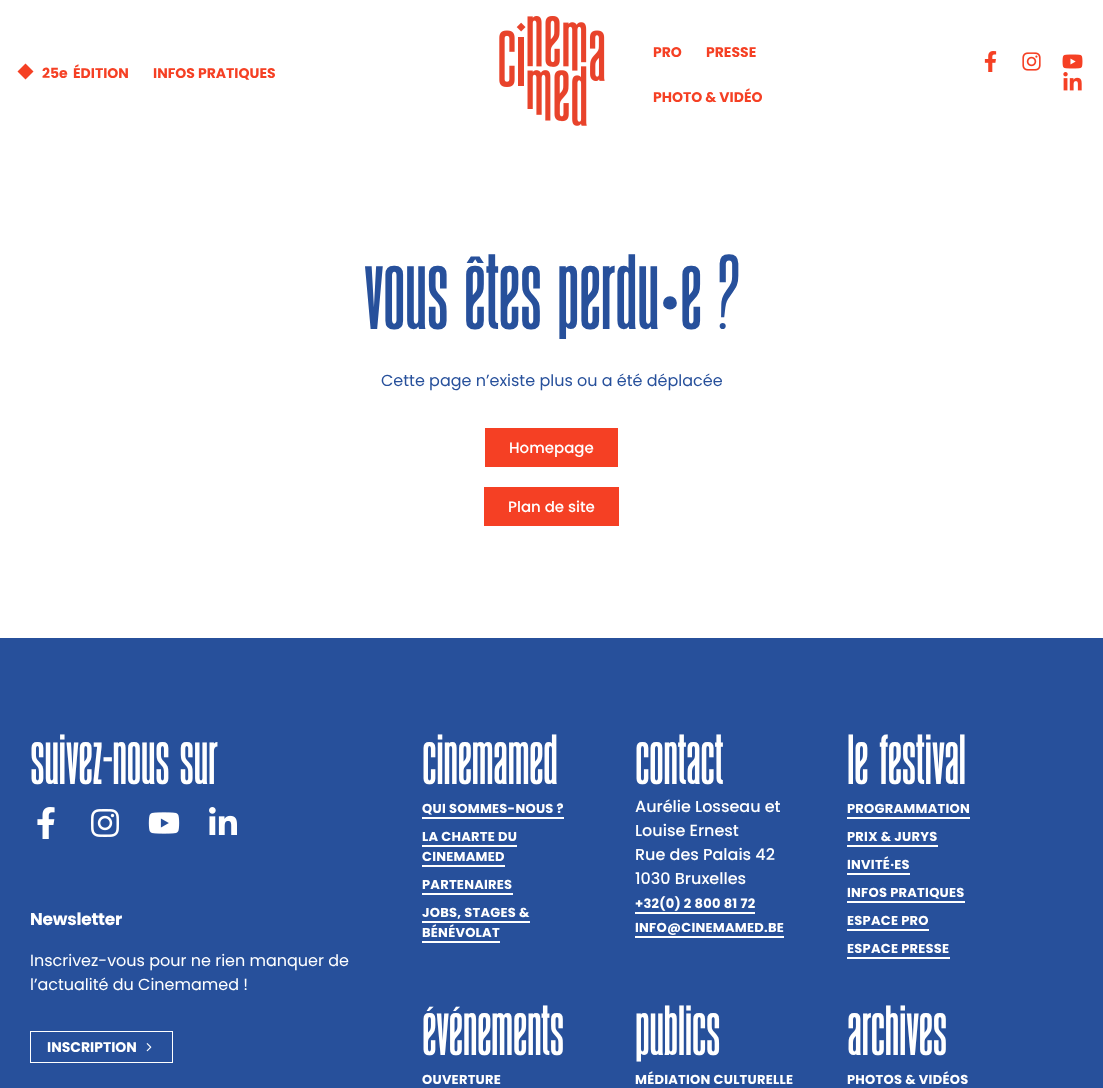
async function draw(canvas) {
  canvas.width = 1103
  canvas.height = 1088
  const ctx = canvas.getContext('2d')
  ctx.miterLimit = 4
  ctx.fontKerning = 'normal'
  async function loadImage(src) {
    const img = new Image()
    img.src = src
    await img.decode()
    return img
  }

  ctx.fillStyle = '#fff'
  ctx.fillRect(0, 0, 1103, 1088)
  ctx.fillStyle = '#f54024'
  ctx.beginPath()
  ctx.moveTo(33.5, 71.5)
  ctx.lineTo(25.5, 79.5)
  ctx.lineTo(17.5, 71.5)
  ctx.lineTo(25.5, 63.5)
  ctx.closePath()
  ctx.fill()
  ctx.font = 'bold 14px Poppins'
  ctx.fillText('25e', 42, 78)
  ctx.fillText('ÉDITION', 73, 78)
  ctx.fillText('INFOS PRATIQUES', 153, 78)
  ctx.drawImage(await loadImage('image0.png'), 499, 16, 106, 110)
  ctx.fillText('PRO', 653, 57)
  ctx.fillText('PRESSE', 706, 57)
  ctx.fillText('PHOTO & VIDÉO', 653, 102)
  ctx.drawImage(await loadImage('image1.png'), 984, 51, 13, 21)
  ctx.drawImage(await loadImage('image2.png'), 1022, 52, 19, 19)
  ctx.drawImage(await loadImage('image3.png'), 1062, 54, 21, 15)
  ctx.drawImage(await loadImage('image4.png'), 1063, 72, 19, 19)
  ctx.letterSpacing = '-0.6px'
  ctx.font = '80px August'
  ctx.fillStyle = '#27509b'
  ctx.fillText('vous êtes perdu', 363, 329)
  ctx.font = '600 80px Poppins'
  ctx.fillText('·', 659, 329)
  ctx.font = '80px August'
  ctx.fillText('e ?', 680, 329)
  ctx.letterSpacing = '0px'
  ctx.font = '16px Poppins'
  ctx.fillText('Cette page n’existe plus ou a été déplacée', 381, 386)
  ctx.fillStyle = '#f54024'
  ctx.fillRect(485, 428, 133, 39)
  ctx.font = '500 15px Poppins'
  ctx.fillStyle = '#fff'
  ctx.fillText('Homepage', 509, 453)
  ctx.fillStyle = '#f54024'
  ctx.fillRect(484, 487, 135, 39)
  ctx.fillStyle = '#fff'
  ctx.fillText('Plan de site', 508, 512)
  ctx.fillStyle = '#27509b'
  ctx.fillRect(0, 638, 1103, 450)
  ctx.letterSpacing = '-0.6px'
  ctx.font = '53px August'
  ctx.fillStyle = '#fff'
  ctx.fillText('suivez-nous sur', 30, 784)
  ctx.drawImage(await loadImage('image5.png'), 37, 807, 18, 32)
  ctx.drawImage(await loadImage('image6.png'), 91, 809, 28, 28)
  ctx.drawImage(await loadImage('image7.png'), 148, 812, 32, 22)
  ctx.drawImage(await loadImage('image8.png'), 209, 807, 28, 28)
  ctx.letterSpacing = '-0.25px'
  ctx.font = 'bold 17px Poppins'
  ctx.fillText('Newsletter', 30, 925)
  ctx.letterSpacing = '0px'
  ctx.font = '16px Poppins'
  ctx.fillText('Inscrivez-vous pour ne rien manquer de', 30, 966)
  ctx.fillText('l’actualité du Cinemamed !', 30, 990)
  ctx.strokeStyle = '#fff'
  ctx.strokeRect(30.5, 1031.5, 142, 31)
  ctx.font = 'bold 14px Poppins'
  ctx.fillText('INSCRIPTION', 47, 1052)
  ctx.drawImage(await loadImage('image9.png'), 146, 1043, 6, 9)
  ctx.letterSpacing = '-0.6px'
  ctx.font = '53px August'
  ctx.fillText('cinemamed', 422, 784)
  ctx.letterSpacing = '0.25px'
  ctx.font = 'bold 13px Poppins'
  ctx.fillText('QUI SOMMES-NOUS ?', 422, 813)
  ctx.fillRect(422, 817, 142, 2)
  ctx.fillText('LA CHARTE DU', 422, 841)
  ctx.fillRect(422, 845, 95, 2)
  ctx.fillText('CINEMAMED', 422, 861)
  ctx.fillRect(422, 865, 83, 2)
  ctx.fillText('PARTENAIRES', 422, 889)
  ctx.fillRect(422, 893, 91, 2)
  ctx.fillText('JOBS, STAGES &', 422, 917)
  ctx.fillRect(422, 921, 108, 2)
  ctx.fillText('BÉNÉVOLAT', 422, 937)
  ctx.fillRect(422, 941, 78, 2)
  ctx.letterSpacing = '-0.6px'
  ctx.font = '53px August'
  ctx.fillText('contact', 635, 784)
  ctx.letterSpacing = '0px'
  ctx.font = '500 16px Poppins'
  ctx.fillText('Aurélie Losseau et', 635, 812)
  ctx.fillText('Louise Ernest', 635, 836)
  ctx.fillText('Rue des Palais 42', 635, 860)
  ctx.fillText('1030 Bruxelles', 635, 884)
  ctx.letterSpacing = '0.25px'
  ctx.font = 'bold 13px Poppins'
  ctx.fillText('+32(0) 2 800 81 72', 635, 908)
  ctx.fillRect(635, 912, 120, 2)
  ctx.fillText('INFO@CINEMAMED.BE', 635, 932)
  ctx.fillRect(635, 936, 149, 2)
  ctx.letterSpacing = '-0.6px'
  ctx.font = '53px August'
  ctx.fillText('le festival', 847, 784)
  ctx.letterSpacing = '0.25px'
  ctx.font = 'bold 13px Poppins'
  ctx.fillText('PROGRAMMATION', 847, 813)
  ctx.fillRect(847, 817, 123, 2)
  ctx.fillText('PRIX & JURYS', 847, 841)
  ctx.fillRect(847, 845, 91, 2)
  ctx.fillText('INVITÉ·ES', 847, 869)
  ctx.fillRect(847, 873, 63, 2)
  ctx.fillText('INFOS PRATIQUES', 847, 897)
  ctx.fillRect(847, 901, 118, 2)
  ctx.fillText('ESPACE PRO', 847, 925)
  ctx.fillRect(847, 929, 82, 2)
  ctx.fillText('ESPACE PRESSE', 847, 953)
  ctx.fillRect(847, 957, 103, 2)
  ctx.letterSpacing = '-0.6px'
  ctx.font = '53px August'
  ctx.fillText('événements', 422, 1055)
  ctx.letterSpacing = '0.25px'
  ctx.font = 'bold 13px Poppins'
  ctx.fillText('OUVERTURE', 422, 1084)
  ctx.letterSpacing = '-0.6px'
  ctx.font = '53px August'
  ctx.fillText('publics', 635, 1055)
  ctx.letterSpacing = '0.25px'
  ctx.font = 'bold 13px Poppins'
  ctx.fillText('MÉDIATION CULTURELLE', 635, 1084)
  ctx.letterSpacing = '-0.6px'
  ctx.font = '53px August'
  ctx.fillText('archives', 847, 1055)
  ctx.letterSpacing = '0.25px'
  ctx.font = 'bold 13px Poppins'
  ctx.fillText('PHOTOS & VIDÉOS', 847, 1084)
}

draw(document.querySelector('canvas'))
